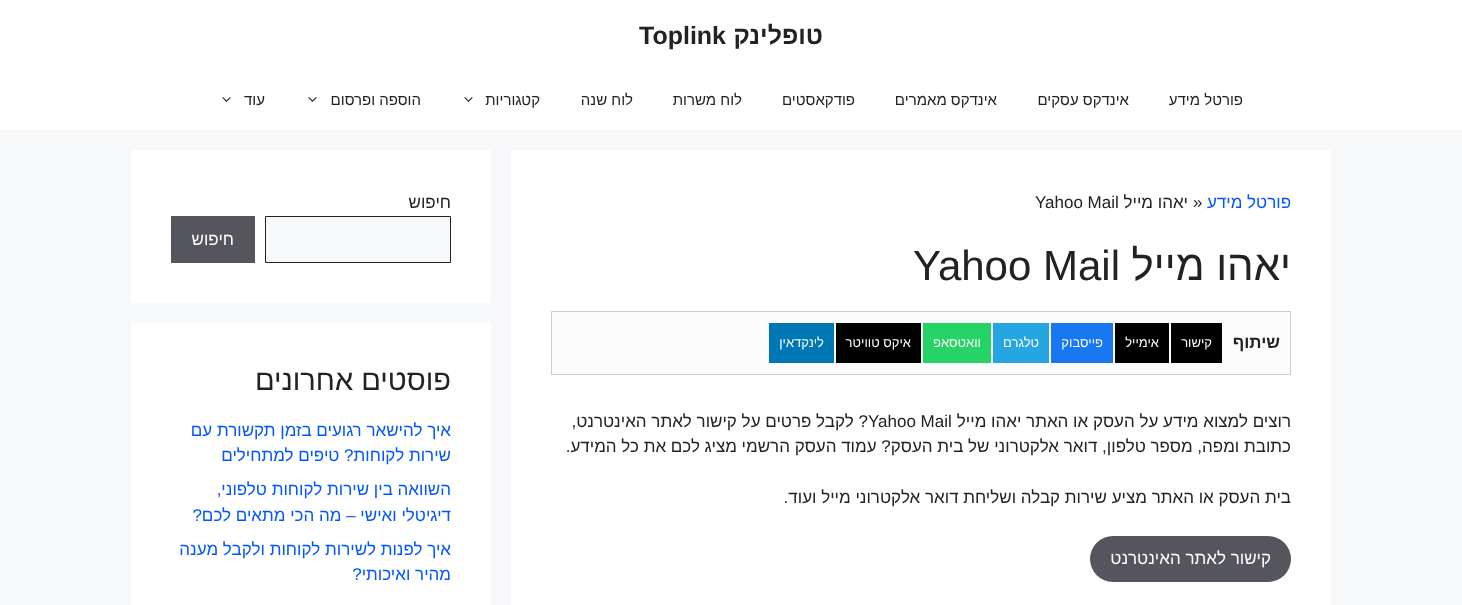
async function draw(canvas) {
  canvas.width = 1462
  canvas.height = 605
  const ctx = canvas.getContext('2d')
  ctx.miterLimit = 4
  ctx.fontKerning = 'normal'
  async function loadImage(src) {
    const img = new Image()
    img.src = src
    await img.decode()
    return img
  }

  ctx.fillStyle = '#f7f8f9'
  ctx.fillRect(0, 0, 1462, 605)
  ctx.fillStyle = '#fff'
  ctx.fillRect(0, 0, 1462, 130)
  ctx.direction = 'rtl'
  ctx.font = 'bold 25px Liberation Sans'
  ctx.fillStyle = '#222'
  ctx.fillText('טופלינק', 823, 44)
  ctx.direction = 'ltr'
  ctx.fillText('Toplink', 639, 44)
  ctx.direction = 'rtl'
  ctx.font = '15px Liberation Sans'
  ctx.fillText('פורטל מידע', 1243, 105)
  ctx.fillText('אינדקס עסקים', 1129, 105)
  ctx.fillText('אינדקס מאמרים', 997, 105)
  ctx.fillText('פודקאסטים', 855, 105)
  ctx.fillText('לוח משרות', 742, 105)
  ctx.fillText('לוח שנה', 633, 105)
  ctx.fillText('קטגוריות', 540, 105)
  ctx.drawImage(await loadImage('image0.png'), 464, 97, 9, 5)
  ctx.fillText('הוספה ופרסום', 421, 105)
  ctx.drawImage(await loadImage('image0.png'), 308, 97, 9, 5)
  ctx.fillText('עוד', 265, 105)
  ctx.drawImage(await loadImage('image0.png'), 222, 97, 9, 5)
  ctx.fillStyle = '#fff'
  ctx.fillRect(511, 150, 820, 455)
  ctx.font = '17px Liberation Sans'
  ctx.fillStyle = '#05f'
  ctx.fillText('פורטל מידע', 1291, 208)
  ctx.direction = 'ltr'
  ctx.fillStyle = '#222'
  ctx.fillText('»', 1193, 208)
  ctx.direction = 'rtl'
  ctx.fillText('יאהו מייל', 1188, 208)
  ctx.direction = 'ltr'
  ctx.fillText('Yahoo Mail', 1035, 208)
  ctx.direction = 'rtl'
  ctx.font = '42px Liberation Sans'
  ctx.fillText('יאהו מייל', 1291, 280)
  ctx.direction = 'ltr'
  ctx.fillText('Yahoo Mail', 913, 280)
  ctx.fillStyle = '#fcfcfc'
  ctx.beginPath()
  ctx.rect(551.5, 311.5, 739, 63)
  ctx.fill()
  ctx.strokeStyle = '#ccc'
  ctx.stroke()
  ctx.direction = 'rtl'
  ctx.font = 'bold 17px Liberation Sans'
  ctx.fillStyle = '#222'
  ctx.fillText('שיתוף', 1280, 348)
  ctx.fillStyle = '#000'
  ctx.fillRect(1171, 323, 51, 40)
  ctx.font = '13px Liberation Sans'
  ctx.fillStyle = '#fff'
  ctx.fillText('קישור', 1212, 347)
  ctx.fillStyle = '#000'
  ctx.fillRect(1115, 323, 54, 40)
  ctx.fillStyle = '#fff'
  ctx.fillText('אימייל', 1159, 347)
  ctx.fillStyle = '#1778f2'
  ctx.fillRect(1051, 323, 62, 40)
  ctx.fillStyle = '#fff'
  ctx.fillText('פייסבוק', 1103, 347)
  ctx.fillStyle = '#26a5e3'
  ctx.fillRect(993, 323, 56, 40)
  ctx.fillStyle = '#fff'
  ctx.fillText('טלגרם', 1039, 347)
  ctx.fillStyle = '#25d366'
  ctx.fillRect(923, 323, 68, 40)
  ctx.fillStyle = '#fff'
  ctx.fillText('וואטסאפ', 981, 347)
  ctx.fillStyle = '#000'
  ctx.fillRect(836, 323, 85, 40)
  ctx.fillStyle = '#fff'
  ctx.fillText('איקס טוויטר', 911, 347)
  ctx.fillStyle = '#0077b5'
  ctx.fillRect(769, 323, 65, 40)
  ctx.fillStyle = '#fff'
  ctx.fillText('לינקדאין', 824, 347)
  ctx.font = '17px Liberation Sans'
  ctx.fillStyle = '#222'
  ctx.fillText('רוצים למצוא מידע על העסק או האתר יאהו מייל', 1291, 427)
  ctx.direction = 'ltr'
  ctx.fillText('Yahoo Mail', 868, 427)
  ctx.direction = 'rtl'
  ctx.fillText('? לקבל פרטים על קישור לאתר האינטרנט,', 868, 427)
  ctx.fillText('כתובת ומפה, מספר טלפון, דואר אלקטרוני של בית העסק? עמוד העסק הרשמי מציג לכם את כל המידע.', 1291, 452)
  ctx.fillText('בית העסק או האתר מציע שירות קבלה ושליחת דואר אלקטרוני מייל ועוד.', 1291, 503)
  ctx.fillStyle = '#55555e'
  ctx.beginPath()
  ctx.roundRect(1090, 536, 201, 46, 23)
  ctx.fill()
  ctx.fillStyle = '#fff'
  ctx.fillText('קישור לאתר האינטרנט', 1271, 564)
  ctx.fillRect(131, 150, 360, 153)
  ctx.fillStyle = '#222'
  ctx.fillText('חיפוש', 451, 208)
  ctx.fillStyle = '#f7f8f9'
  ctx.beginPath()
  ctx.rect(265.5, 216.5, 185, 46)
  ctx.fill()
  ctx.strokeStyle = '#222'
  ctx.stroke()
  ctx.fillStyle = '#55555e'
  ctx.fillRect(171, 216, 84, 47)
  ctx.fillStyle = '#fff'
  ctx.fillText('חיפוש', 234, 245)
  ctx.fillRect(131, 323, 360, 282)
  ctx.font = '29px Liberation Sans'
  ctx.fillStyle = '#222'
  ctx.fillText('פוסטים אחרונים', 451, 390)
  ctx.font = '17px Liberation Sans'
  ctx.fillStyle = '#05f'
  ctx.fillText('איך להישאר רגועים בזמן תקשורת עם', 451, 436)
  ctx.fillText('שירות לקוחות? טיפים למתחילים', 451, 461)
  ctx.fillText('השוואה בין שירות לקוחות טלפוני,', 451, 495)
  ctx.fillText('דיגיטלי ואישי – מה הכי מתאים לכם?', 451, 521)
  ctx.fillText('איך לפנות לשירות לקוחות ולקבל מענה', 451, 555)
  ctx.fillText('מהיר ואיכותי?', 451, 580)
}

draw(document.querySelector('canvas'))
